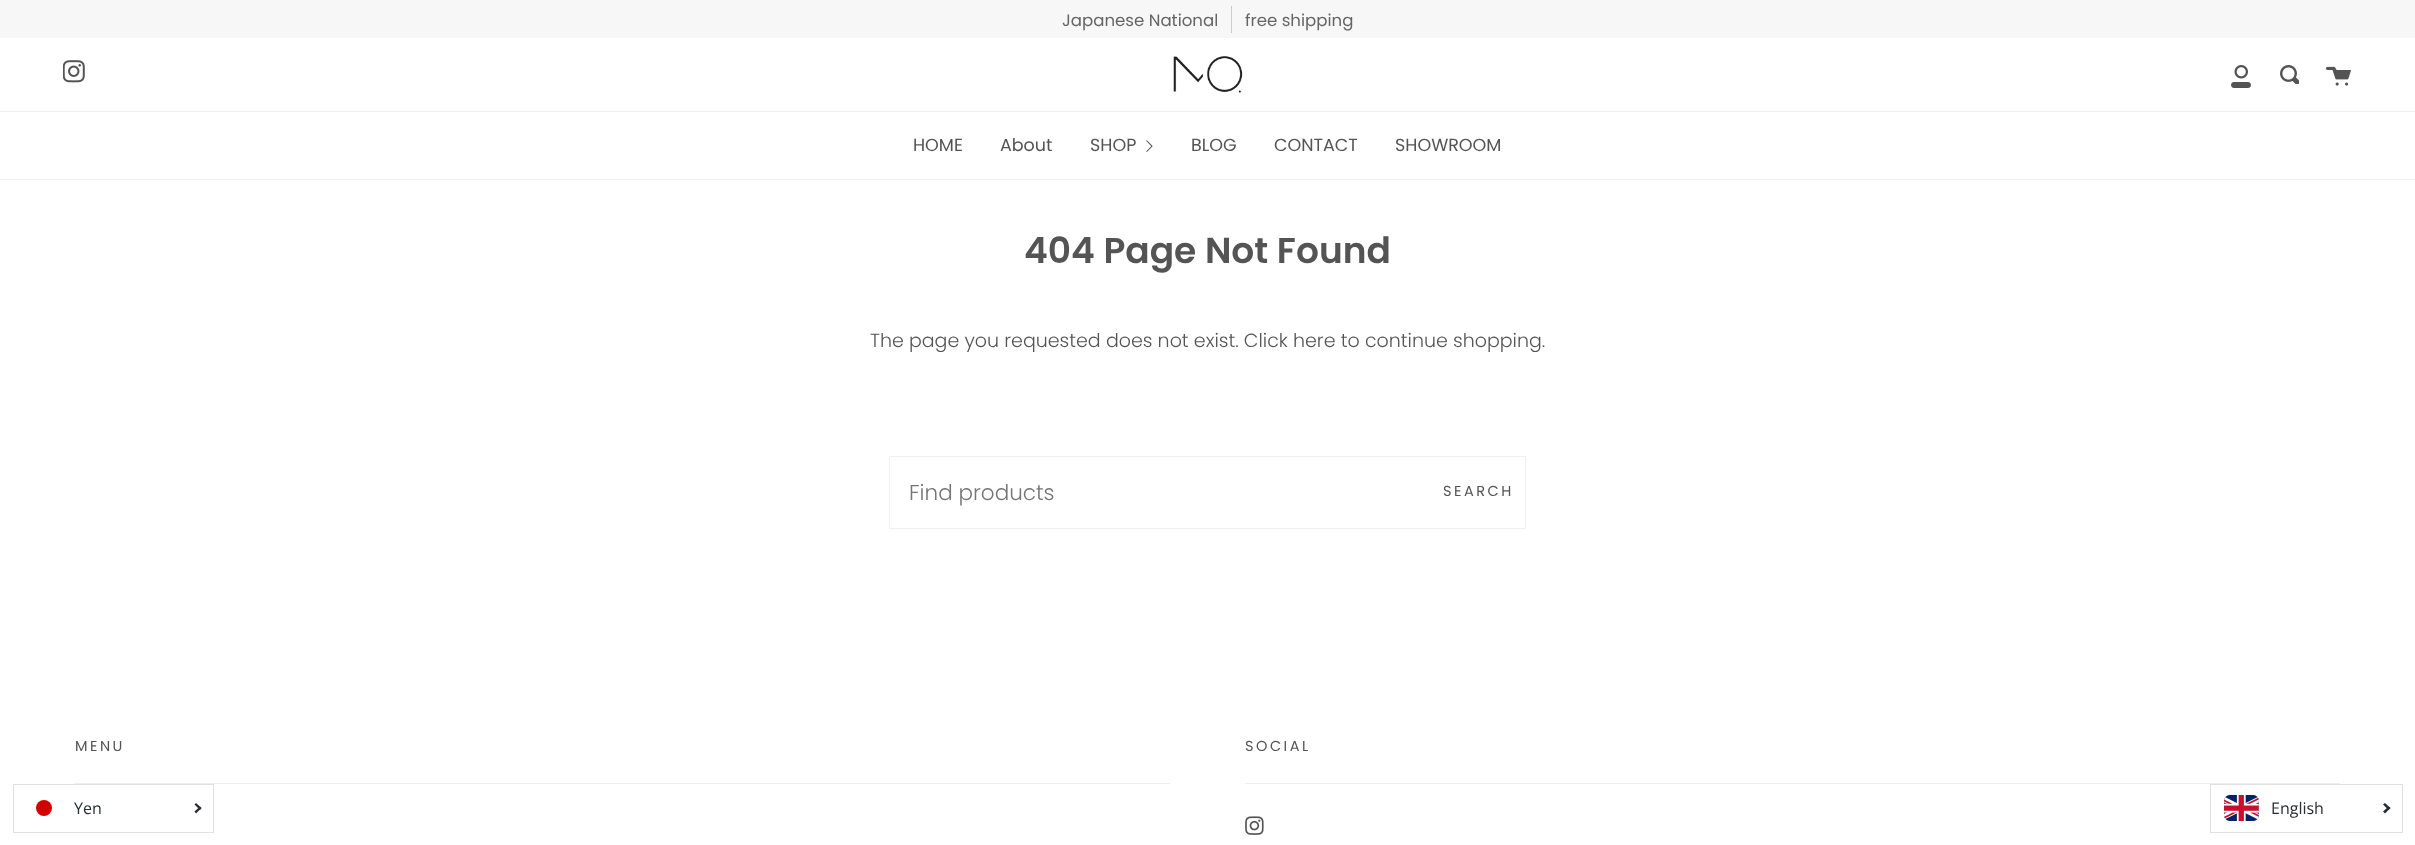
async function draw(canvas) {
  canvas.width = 2415
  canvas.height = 845
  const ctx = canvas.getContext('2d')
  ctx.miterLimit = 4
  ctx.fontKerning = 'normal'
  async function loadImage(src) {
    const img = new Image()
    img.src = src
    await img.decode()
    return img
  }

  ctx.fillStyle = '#fff'
  ctx.fillRect(0, 0, 2415, 845)
  ctx.fillStyle = '#f7f7f7'
  ctx.fillRect(0, 0, 2415, 38)
  ctx.font = '16.6px Poppins'
  ctx.fillStyle = '#656565'
  ctx.fillText('Japanese National', 1062, 26)
  ctx.fillStyle = '#cbcbcb'
  ctx.fillRect(1231, 6, 1, 27)
  ctx.fillStyle = '#656565'
  ctx.fillText('free shipping', 1245, 26)
  ctx.fillStyle = '#f0f0f0'
  ctx.fillRect(0, 179, 2415, 1)
  ctx.drawImage(await loadImage('image0.png'), 63, 60, 22, 23)
  ctx.drawImage(await loadImage('image1.png'), 1173, 56, 70, 37)
  ctx.drawImage(await loadImage('image2.png'), 2231, 65, 20, 23)
  ctx.drawImage(await loadImage('image3.png'), 2280, 65, 19, 19)
  ctx.drawImage(await loadImage('image4.png'), 2326, 66, 25, 20)
  ctx.fillRect(0, 111, 2415, 1)
  ctx.font = '17.5px Poppins'
  ctx.fillStyle = '#545454'
  ctx.fillText('HOME', 913, 151)
  ctx.fillText('About', 1000, 151)
  ctx.fillText('SHOP', 1090, 151)
  ctx.drawImage(await loadImage('image5.png'), 1146, 140, 7, 12)
  ctx.fillText('BLOG', 1191, 151)
  ctx.fillText('CONTACT', 1274, 151)
  ctx.fillText('SHOWROOM', 1395, 151)
  ctx.font = '600 36px Poppins'
  ctx.fillText('404 Page Not Found', 1024, 263)
  ctx.font = '300 19px Poppins'
  ctx.fillText('The page you requested does not exist. Click', 870, 347)
  ctx.fillText('here to continue shopping.', 1293, 347)
  ctx.strokeStyle = '#f0f0f0'
  ctx.strokeRect(889.5, 456.5, 636, 72)
  ctx.font = '300 21.5px Poppins'
  ctx.fillStyle = '#757575'
  ctx.fillText('Find products', 909, 500)
  ctx.letterSpacing = '2.5px'
  ctx.font = '14.5px Poppins'
  ctx.fillStyle = '#545454'
  ctx.fillText('SEARCH', 1443, 496)
  ctx.fillText('MENU', 75, 751)
  ctx.fillStyle = '#eee'
  ctx.fillRect(75, 783, 1095, 1)
  ctx.fillStyle = '#545454'
  ctx.fillText('SOCIAL', 1245, 751)
  ctx.fillStyle = '#eee'
  ctx.fillRect(1245, 783, 1095, 1)
  ctx.drawImage(await loadImage('image6.png'), 1245, 816, 19, 19)
  ctx.strokeStyle = '#e0e0e0'
  ctx.strokeRect(13.5, 784.5, 200, 48)
  ctx.fillStyle = '#d30000'
  ctx.beginPath()
  ctx.arc(44, 808, 8, 0, 2 * Math.PI)
  ctx.fill()
  ctx.letterSpacing = '0px'
  ctx.font = '16px Open Sans'
  ctx.fillStyle = '#272e31'
  ctx.fillText('Yen', 74, 814)
  ctx.beginPath()
  ctx.moveTo(196, 803)
  ctx.lineTo(201.5, 808)
  ctx.lineTo(200, 810)
  ctx.lineTo(194.5, 804.5)
  ctx.closePath()
  ctx.fill()
  ctx.beginPath()
  ctx.moveTo(200, 806.5)
  ctx.lineTo(201.5, 808)
  ctx.lineTo(196, 813.5)
  ctx.lineTo(194.5, 811.5)
  ctx.closePath()
  ctx.fill()
  ctx.strokeRect(2210.5, 784.5, 192, 48)
  ctx.drawImage(await loadImage('image7.png'), 2224, 795, 35, 26)
  ctx.fillText('English', 2271, 814)
  ctx.beginPath()
  ctx.moveTo(2385, 803)
  ctx.lineTo(2390.5, 808)
  ctx.lineTo(2388.5, 810)
  ctx.lineTo(2383, 804.5)
  ctx.closePath()
  ctx.fill()
  ctx.beginPath()
  ctx.moveTo(2388.5, 806.5)
  ctx.lineTo(2390.5, 808)
  ctx.lineTo(2385, 813.5)
  ctx.lineTo(2383, 811.5)
  ctx.closePath()
  ctx.fill()
}

draw(document.querySelector('canvas'))
